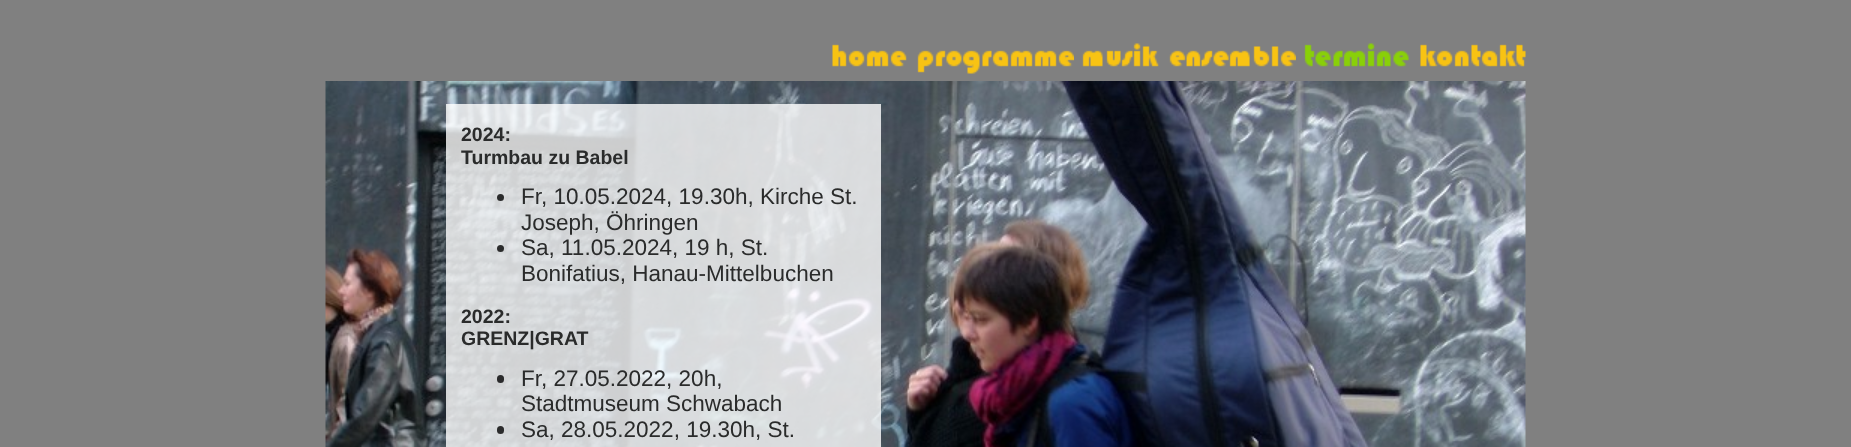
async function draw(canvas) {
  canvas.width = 1851
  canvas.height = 447
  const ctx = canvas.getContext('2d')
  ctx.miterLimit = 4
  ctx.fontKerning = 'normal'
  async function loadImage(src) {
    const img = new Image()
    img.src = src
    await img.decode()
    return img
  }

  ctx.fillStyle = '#808080'
  ctx.fillRect(0, 0, 1851, 447)
  ctx.drawImage(await loadImage('image0.png'), 832, 44, 75, 23)
  ctx.drawImage(await loadImage('image1.png'), 917, 50, 157, 24)
  ctx.drawImage(await loadImage('image2.png'), 1082, 43, 77, 24)
  ctx.drawImage(await loadImage('image3.png'), 1169, 46, 127, 21)
  ctx.drawImage(await loadImage('image4.png'), 1304, 43, 106, 24)
  ctx.drawImage(await loadImage('image5.png'), 1420, 44, 106, 23)
  ctx.drawImage(await loadImage('image6.png'), 325, 81, 1201, 366)
  ctx.fillStyle = '#ffffffcc'
  ctx.fillRect(446, 104, 435, 343)
  ctx.font = 'bold 19.5px Liberation Sans'
  ctx.fillStyle = '#2a2b2b'
  ctx.fillText('2024:', 461, 141)
  ctx.fillText('Turmbau zu Babel', 461, 164)
  ctx.fillStyle = '#000000cc'
  ctx.beginPath()
  ctx.arc(500.5, 197.5, 3.5, 0, 2 * Math.PI)
  ctx.fill()
  ctx.font = '22.5px Liberation Sans'
  ctx.fillStyle = '#2a2b2b'
  ctx.fillText('Fr, 10.05.2024, 19.30h, Kirche St.', 521, 204)
  ctx.fillText('Joseph, Öhringen', 521, 230)
  ctx.fillStyle = '#000000cc'
  ctx.beginPath()
  ctx.arc(500.5, 248.5, 3.5, 0, 2 * Math.PI)
  ctx.fill()
  ctx.fillStyle = '#2a2b2b'
  ctx.fillText('Sa, 11.05.2024, 19 h, St.', 521, 255)
  ctx.fillText('Bonifatius, Hanau-Mittelbuchen', 521, 281)
  ctx.font = 'bold 19.5px Liberation Sans'
  ctx.fillText('2022:', 461, 323)
  ctx.fillText('GRENZ|GRAT', 461, 345)
  ctx.fillStyle = '#2a2a2b'
  ctx.beginPath()
  ctx.roundRect(497, 375, 7, 8, 3.5)
  ctx.fill()
  ctx.font = '22.5px Liberation Sans'
  ctx.fillStyle = '#2a2b2b'
  ctx.fillText('Fr, 27.05.2022, 20h,', 521, 386)
  ctx.fillText('Stadtmuseum Schwabach', 521, 411)
  ctx.fillStyle = '#000000cc'
  ctx.beginPath()
  ctx.roundRect(497, 426, 7, 8, 3.5)
  ctx.fill()
  ctx.fillStyle = '#2a2b2b'
  ctx.fillText('Sa, 28.05.2022, 19.30h, St.', 521, 437)
}

draw(document.querySelector('canvas'))
